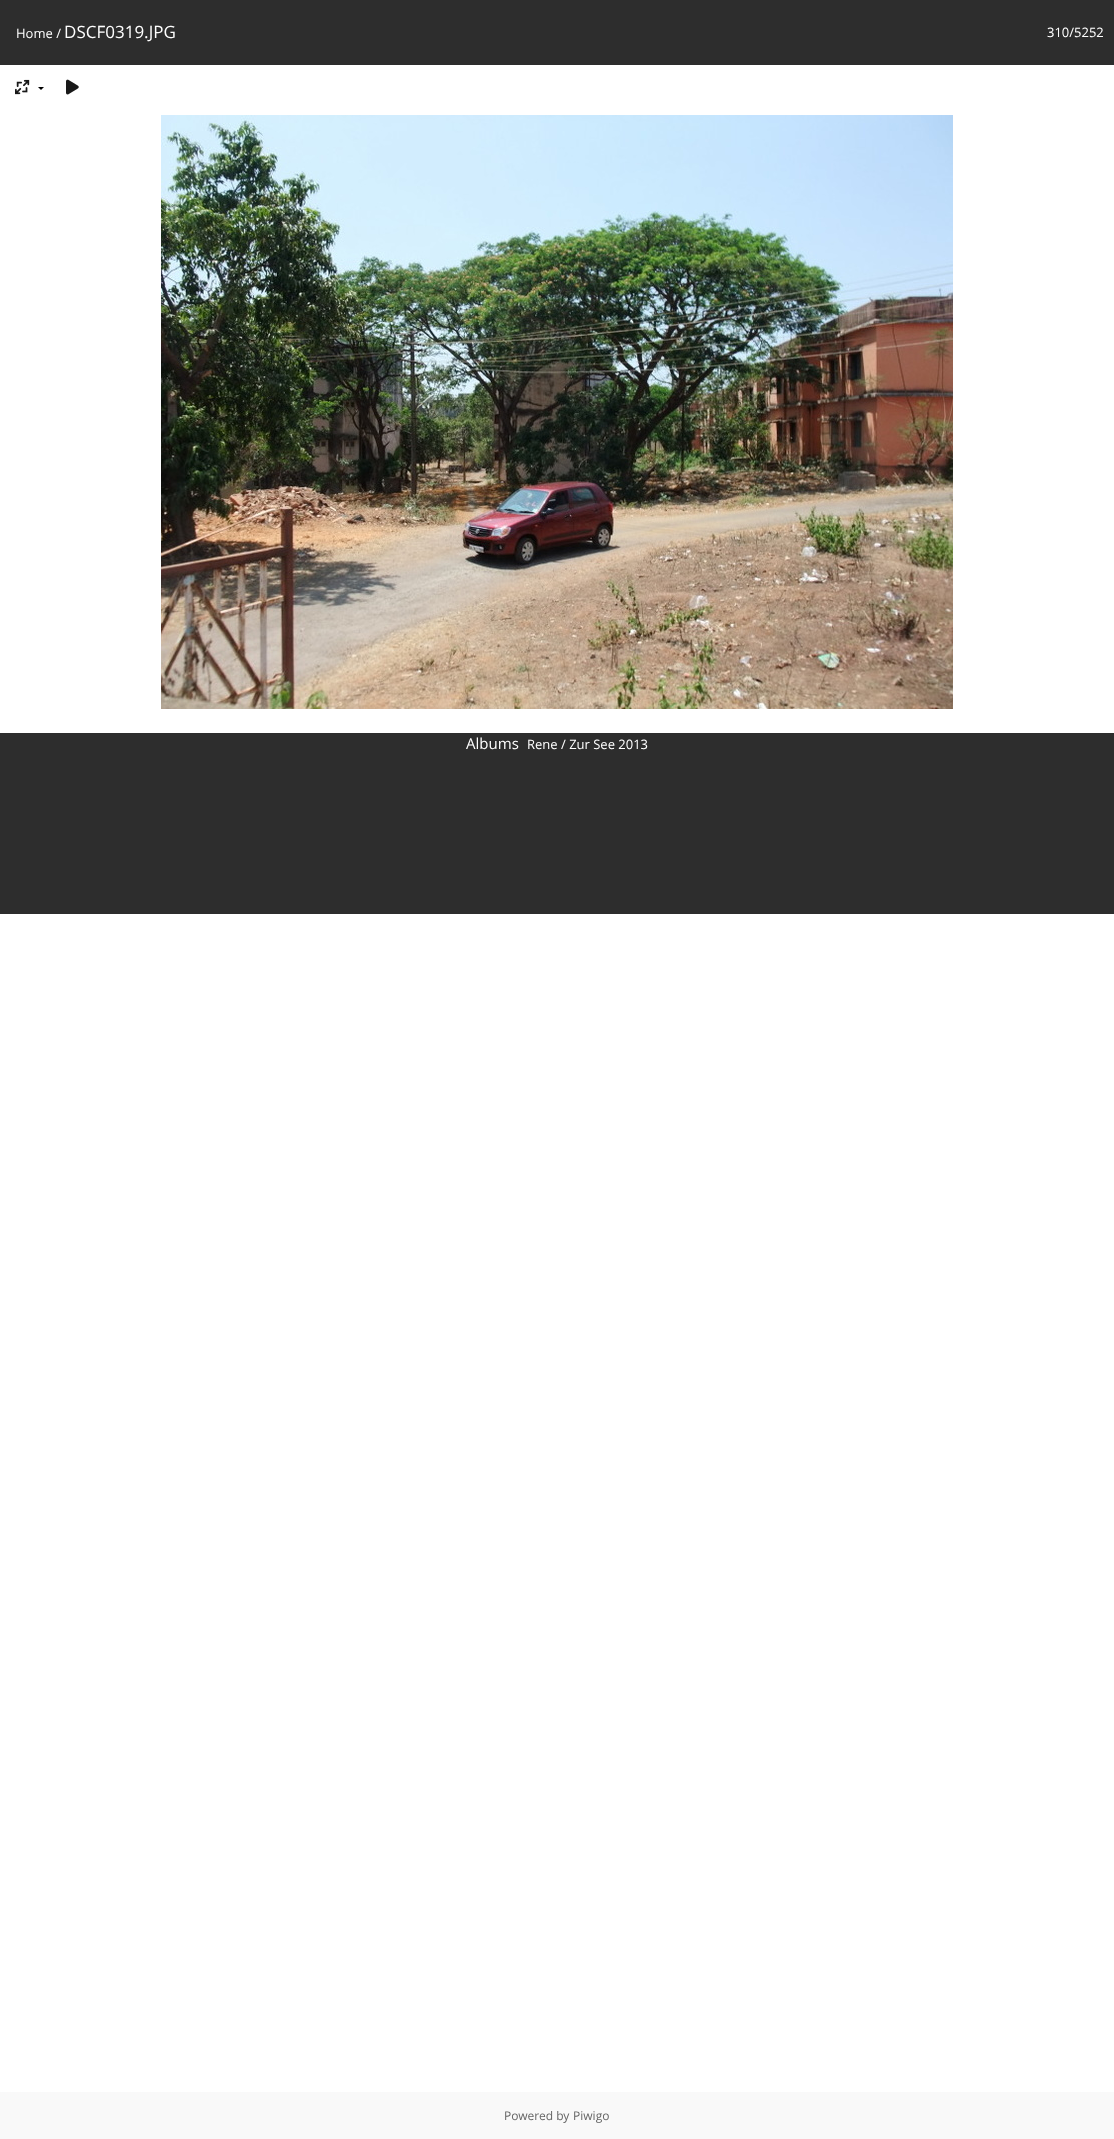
async function draw(canvas) {
  canvas.width = 1114
  canvas.height = 2139
  const ctx = canvas.getContext('2d')
  ctx.miterLimit = 4
  ctx.fontKerning = 'normal'
  async function loadImage(src) {
    const img = new Image()
    img.src = src
    await img.decode()
    return img
  }

  ctx.fillStyle = '#fff'
  ctx.fillRect(0, 0, 1114, 2139)
  ctx.fillStyle = '#2d2d2d'
  ctx.fillRect(0, 0, 1114, 65)
  ctx.font = '13px Open Sans'
  ctx.fillStyle = '#fff'
  ctx.fillText('Home /', 16, 38)
  ctx.font = '17px Open Sans'
  ctx.fillText('DSCF0319.JPG', 64, 38)
  ctx.font = '13px Open Sans'
  ctx.fillText('310/5252', 1047, 37)
  ctx.drawImage(await loadImage('image0.png'), 15, 79, 15, 16)
  ctx.fillStyle = '#000'
  ctx.beginPath()
  ctx.moveTo(38, 87)
  ctx.lineTo(44, 87)
  ctx.lineTo(41, 90)
  ctx.closePath()
  ctx.fill()
  ctx.drawImage(await loadImage('image1.png'), 66, 79, 13, 16)
  ctx.drawImage(await loadImage('image2.png'), 161, 115, 792, 594)
  ctx.fillStyle = '#2d2d2d'
  ctx.fillRect(0, 733, 1114, 181)
  ctx.font = '15px Open Sans'
  ctx.fillStyle = '#fff'
  ctx.fillText('Albums', 466, 749)
  ctx.font = '13px Open Sans'
  ctx.fillText('Rene / Zur See 2013', 527, 749)
  ctx.fillStyle = '#f9f9f9'
  ctx.fillRect(0, 2092, 1114, 47)
  ctx.font = '12px Open Sans'
  ctx.fillStyle = '#666'
  ctx.fillText('Powered by', 504, 2120)
  ctx.fillText('Piwigo', 573, 2120)
}

draw(document.querySelector('canvas'))
